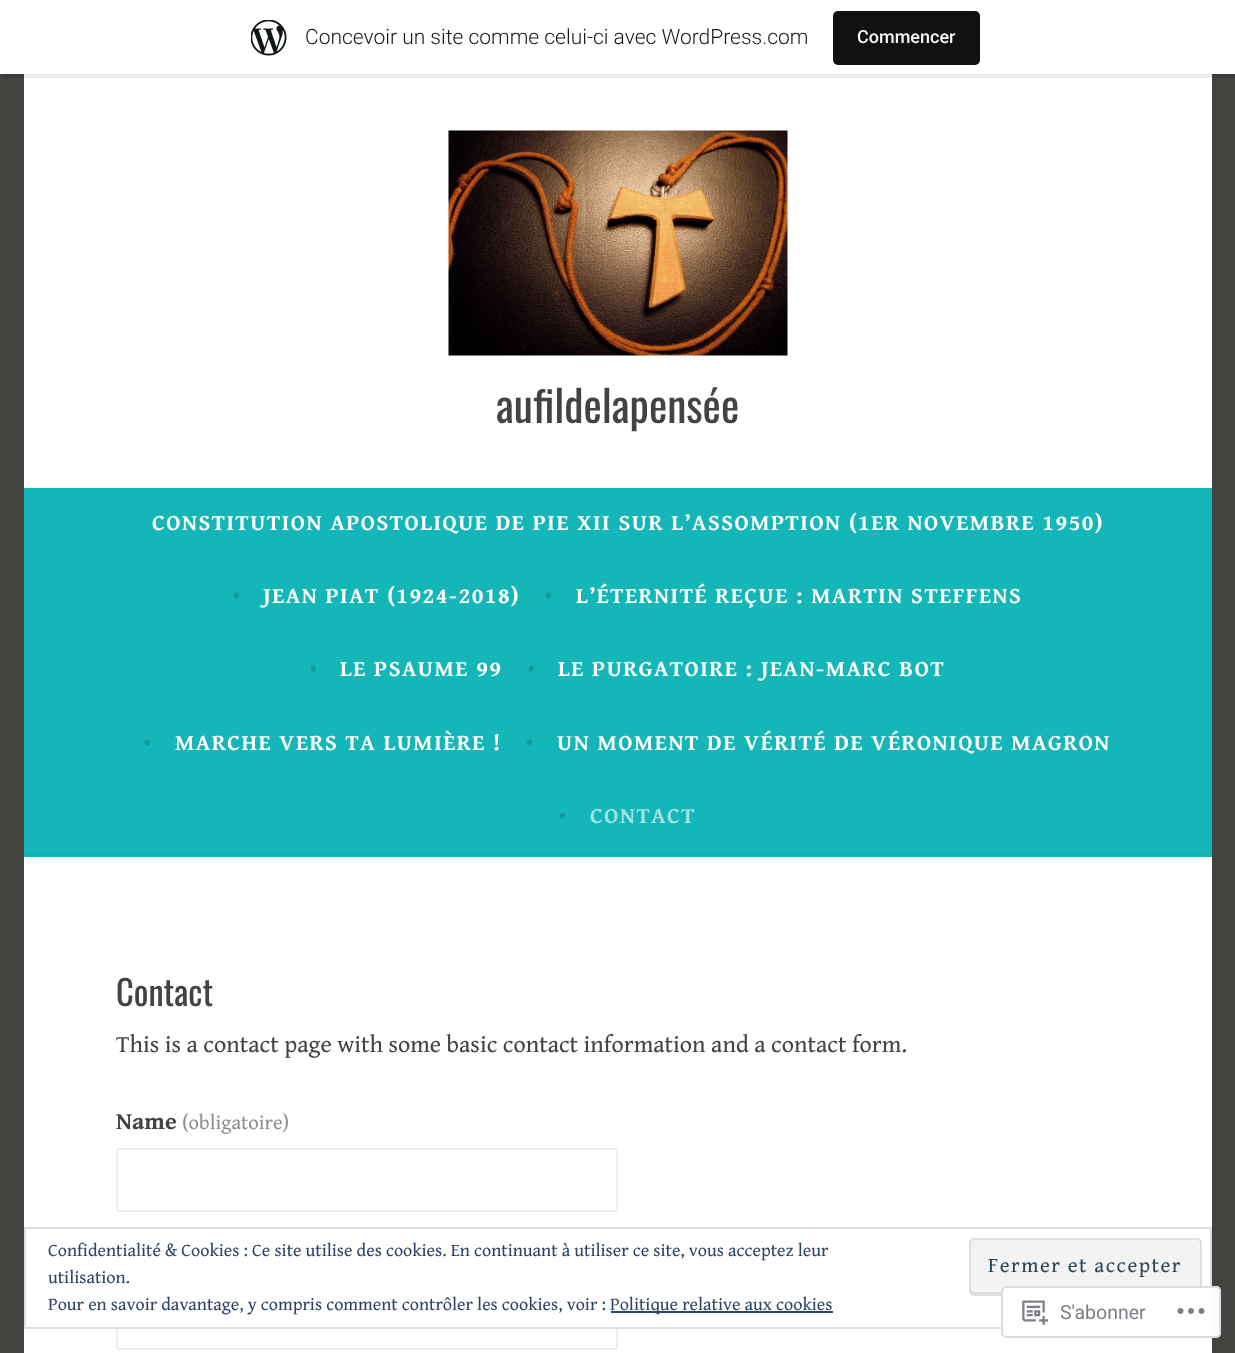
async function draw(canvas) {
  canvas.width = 1235
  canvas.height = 1353
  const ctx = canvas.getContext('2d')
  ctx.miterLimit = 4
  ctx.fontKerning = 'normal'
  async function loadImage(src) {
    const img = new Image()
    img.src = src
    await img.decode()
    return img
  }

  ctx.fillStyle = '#444340'
  ctx.fillRect(0, 0, 1235, 1353)
  ctx.fillStyle = '#fff'
  ctx.fillRect(24, 74, 1188, 414)
  ctx.fillStyle = '#00000014'
  ctx.beginPath()
  ctx.moveTo(2, 74)
  ctx.lineTo(2, 78)
  ctx.lineTo(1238, 78)
  ctx.lineTo(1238, 5)
  ctx.lineTo(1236, 5)
  ctx.lineTo(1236, 74)
  ctx.closePath()
  ctx.fill()
  ctx.fillStyle = '#fff'
  ctx.fillRect(0, 0, 1235, 74)
  ctx.drawImage(await loadImage('image0.png'), 251, 20, 36, 36)
  ctx.font = '300 21px Roboto'
  ctx.fillStyle = '#171717'
  ctx.fillText('Concevoir un site comme celui-ci avec WordPress.com', 305, 44)
  ctx.fillStyle = '#111'
  ctx.beginPath()
  ctx.roundRect(833, 11, 147, 54, 5)
  ctx.fill()
  ctx.font = '500 18px Roboto'
  ctx.fillStyle = '#f6f7f7'
  ctx.fillText('Commencer', 857, 43)
  ctx.drawImage(await loadImage('image1.png'), 448, 130, 340, 226)
  ctx.font = '43.5px Oswald'
  ctx.fillStyle = '#444340'
  ctx.fillText('aufildelapensée', 496, 423)
  ctx.fillStyle = '#15b6b8'
  ctx.fillRect(24, 488, 1188, 366)
  ctx.fillStyle = '#14b1b2'
  ctx.fillRect(24, 854, 1188, 3)
  ctx.letterSpacing = '1.5px'
  ctx.font = 'bold 22.5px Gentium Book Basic'
  ctx.fillStyle = '#fff'
  ctx.fillText('CONSTITUTION APOSTOLIQUE DE PIE XII SUR L’ASSOMPTION (1ER NOVEMBRE 1950)', 152, 530)
  ctx.letterSpacing = '0px'
  ctx.font = '24px Gentium Book Basic'
  ctx.fillStyle = '#129b9c'
  ctx.fillText('•', 233, 603)
  ctx.letterSpacing = '1.5px'
  ctx.font = 'bold 22.5px Gentium Book Basic'
  ctx.fillStyle = '#fff'
  ctx.fillText('JEAN PIAT (1924-2018)', 263, 603)
  ctx.letterSpacing = '0px'
  ctx.font = '24px Gentium Book Basic'
  ctx.fillStyle = '#129b9c'
  ctx.fillText('•', 545, 603)
  ctx.letterSpacing = '1.5px'
  ctx.font = 'bold 22.5px Gentium Book Basic'
  ctx.fillStyle = '#fff'
  ctx.fillText('L’ÉTERNITÉ REÇUE : MARTIN STEFFENS', 576, 603)
  ctx.letterSpacing = '0px'
  ctx.font = '24px Gentium Book Basic'
  ctx.fillStyle = '#129b9c'
  ctx.fillText('•', 310, 676)
  ctx.letterSpacing = '1.5px'
  ctx.font = 'bold 22.5px Gentium Book Basic'
  ctx.fillStyle = '#fff'
  ctx.fillText('LE PSAUME 99', 340, 676)
  ctx.letterSpacing = '0px'
  ctx.font = '24px Gentium Book Basic'
  ctx.fillStyle = '#129b9c'
  ctx.fillText('•', 528, 676)
  ctx.letterSpacing = '1.5px'
  ctx.font = 'bold 22.5px Gentium Book Basic'
  ctx.fillStyle = '#fff'
  ctx.fillText('LE PURGATOIRE : JEAN-MARC BOT', 558, 676)
  ctx.letterSpacing = '0px'
  ctx.font = '24px Gentium Book Basic'
  ctx.fillStyle = '#129b9c'
  ctx.fillText('•', 144, 750)
  ctx.letterSpacing = '1.5px'
  ctx.font = 'bold 22.5px Gentium Book Basic'
  ctx.fillStyle = '#fff'
  ctx.fillText('MARCHE VERS TA LUMIÈRE !', 175, 750)
  ctx.letterSpacing = '0px'
  ctx.font = '24px Gentium Book Basic'
  ctx.fillStyle = '#129b9c'
  ctx.fillText('•', 526, 750)
  ctx.letterSpacing = '1.5px'
  ctx.font = 'bold 22.5px Gentium Book Basic'
  ctx.fillStyle = '#fff'
  ctx.fillText('UN MOMENT DE VÉRITÉ DE VÉRONIQUE MAGRON', 557, 750)
  ctx.letterSpacing = '0px'
  ctx.font = '24px Gentium Book Basic'
  ctx.fillStyle = '#129b9c'
  ctx.fillText('•', 559, 823)
  ctx.letterSpacing = '1.5px'
  ctx.font = 'bold 22.5px Gentium Book Basic'
  ctx.fillStyle = '#a1e2e3'
  ctx.fillText('CONTACT', 590, 823)
  ctx.fillStyle = '#fff'
  ctx.fillRect(24, 857, 1188, 496)
  ctx.letterSpacing = '0px'
  ctx.font = '34.5px Oswald'
  ctx.fillStyle = '#444340'
  ctx.fillText('Contact', 116, 1006)
  ctx.font = '24px Gentium Book Basic'
  ctx.fillText('This is a contact page with some basic contact information and a contact form.', 116, 1052)
  ctx.font = 'bold 24px Gentium Book Basic'
  ctx.fillText('Name', 116, 1129)
  ctx.font = '20.5px Gentium Book Basic'
  ctx.fillStyle = '#8f8e8c'
  ctx.fillText('(obligatoire)', 182, 1129)
  ctx.beginPath()
  ctx.roundRect(117, 1149, 500, 62, 2)
  ctx.strokeStyle = '#eee'
  ctx.lineWidth = 2
  ctx.stroke()
  ctx.beginPath()
  ctx.roundRect(117, 1287, 500, 62, 2)
  ctx.stroke()
  ctx.fillStyle = '#fff'
  ctx.fillRect(116, 1286, 502, 41)
  ctx.strokeStyle = '#dedede'
  ctx.strokeRect(25, 1228, 1186, 100)
  ctx.font = '18px Gentium Book Basic'
  ctx.fillStyle = '#2e4467'
  ctx.fillText('Confidentialité & Cookies : Ce site utilise des cookies. En continuant à utiliser ce site, vous acceptez leur', 48, 1256)
  ctx.fillText('utilisation.', 48, 1283)
  ctx.fillStyle = '#f3f3f3'
  ctx.beginPath()
  ctx.roundRect(969, 1238, 233, 58, 5)
  ctx.fill()
  ctx.fillStyle = '#dbdbdb'
  ctx.beginPath()
  ctx.moveTo(971, 1290)
  ctx.lineTo(971, 1292)
  ctx.bezierCurveTo(971, 1294, 972, 1295, 974, 1295)
  ctx.lineTo(1197, 1295)
  ctx.bezierCurveTo(1199, 1295, 1200, 1294, 1200, 1292)
  ctx.lineTo(1200, 1288)
  ctx.bezierCurveTo(1200, 1290, 1199, 1292, 1197, 1292)
  ctx.lineTo(974, 1292)
  ctx.bezierCurveTo(973, 1292, 972, 1291, 971, 1290)
  ctx.closePath()
  ctx.fill()
  ctx.beginPath()
  ctx.roundRect(970, 1239, 231, 56, 4)
  ctx.stroke()
  ctx.letterSpacing = '1.5px'
  ctx.font = '21px Gentium Book Basic'
  ctx.fillStyle = '#2e4453'
  ctx.fillText('Fermer et accepter', 988, 1272)
  ctx.letterSpacing = '0px'
  ctx.font = '18px Gentium Book Basic'
  ctx.fillStyle = '#2e4467'
  ctx.fillText('Pour en savoir davantage, y compris comment contrôler les cookies, voir :', 48, 1310)
  ctx.fillRect(611, 1311, 222, 2)
  ctx.fillText('Politique relative aux cookies', 610, 1310)
  ctx.fillStyle = '#fffffffa'
  ctx.beginPath()
  ctx.roundRect(1001, 1286, 220, 52, 5)
  ctx.fill()
  ctx.beginPath()
  ctx.roundRect(1002, 1287, 218, 50, 4)
  ctx.strokeStyle = '#dcdcdefa'
  ctx.stroke()
  ctx.drawImage(await loadImage('image2.png'), 1022, 1300, 27, 25)
  ctx.font = '19.5px Roboto'
  ctx.fillStyle = '#7b7f85'
  ctx.fillText('S\'abonner', 1060, 1319)
  ctx.drawImage(await loadImage('image3.png'), 1177, 1308, 28, 6)
}

draw(document.querySelector('canvas'))
